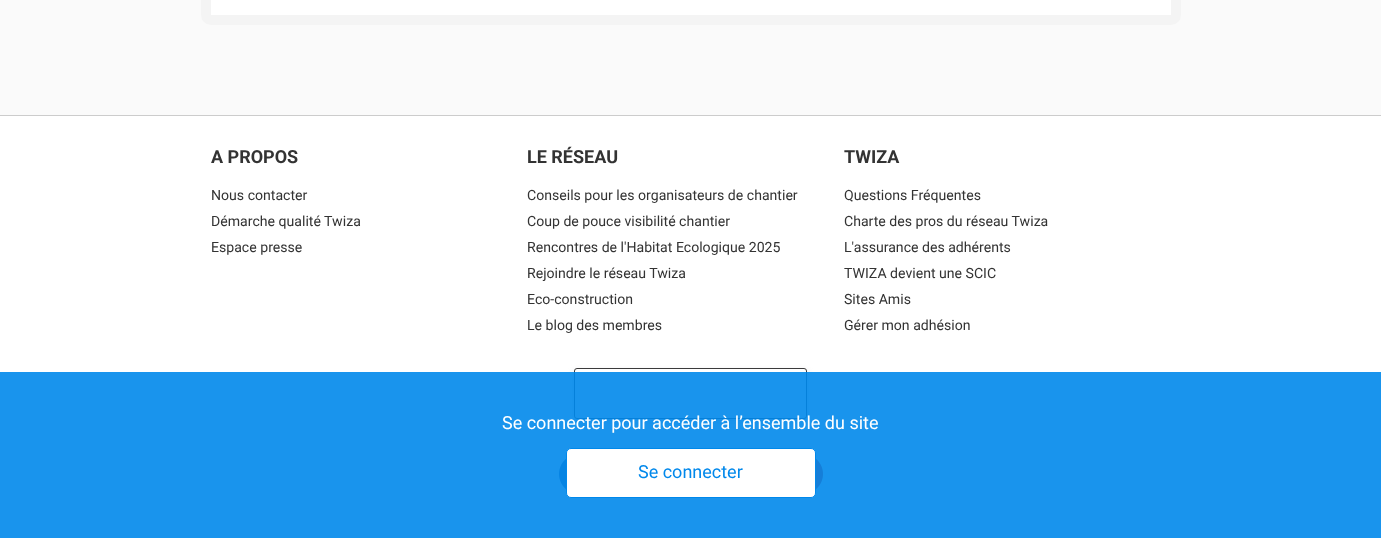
async function draw(canvas) {
  canvas.width = 1381
  canvas.height = 538
  const ctx = canvas.getContext('2d')
  ctx.miterLimit = 4
  ctx.fontKerning = 'normal'
  async function loadImage(src) {
    const img = new Image()
    img.src = src
    await img.decode()
    return img
  }

  ctx.fillStyle = '#fafafa'
  ctx.fillRect(0, 0, 1381, 538)
  ctx.fillStyle = '#fff'
  ctx.beginPath()
  ctx.roundRect(206, -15, 970, 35, 5)
  ctx.fill()
  ctx.strokeStyle = '#f4f4f4'
  ctx.lineWidth = 10
  ctx.stroke()
  ctx.fillRect(0, 116, 1381, 422)
  ctx.fillStyle = '#ccc'
  ctx.fillRect(0, 115, 1381, 1)
  ctx.font = 'bold 18px Roboto'
  ctx.fillStyle = '#333'
  ctx.fillText('A PROPOS', 211, 163)
  ctx.font = '14.1px Roboto'
  ctx.fillText('Nous contacter', 211, 200)
  ctx.fillText('Démarche qualité Twiza', 211, 226)
  ctx.fillText('Espace presse', 211, 252)
  ctx.font = 'bold 18px Roboto'
  ctx.fillText('LE RÉSEAU', 527, 163)
  ctx.font = '14.1px Roboto'
  ctx.fillText('Conseils pour les organisateurs de chantier', 527, 200)
  ctx.fillText('Coup de pouce visibilité chantier', 527, 226)
  ctx.fillText('Rencontres de l\'Habitat Ecologique 2025', 527, 252)
  ctx.fillText('Rejoindre le réseau Twiza', 527, 278)
  ctx.fillText('Eco-construction', 527, 304)
  ctx.fillText('Le blog des membres', 527, 330)
  ctx.font = 'bold 18px Roboto'
  ctx.fillText('TWIZA', 844, 163)
  ctx.font = '14.1px Roboto'
  ctx.fillText('Questions Fréquentes', 844, 200)
  ctx.fillText('Charte des pros du réseau Twiza', 844, 226)
  ctx.fillText('L\'assurance des adhérents', 844, 252)
  ctx.fillText('TWIZA devient une SCIC', 844, 278)
  ctx.fillText('Sites Amis', 844, 304)
  ctx.fillText('Gérer mon adhésion', 844, 330)
  ctx.fillStyle = '#dfdfdf'
  ctx.filter = 'blur(3px)'
  ctx.beginPath()
  ctx.roundRect(574, 371, 233, 51, 3)
  ctx.fill()
  ctx.filter = 'none'
  ctx.fillStyle = '#fff'
  ctx.beginPath()
  ctx.roundRect(574.5, 368.5, 232, 50, 2.5)
  ctx.fill()
  ctx.strokeStyle = '#3b3b3c'
  ctx.lineWidth = 1
  ctx.stroke()
  ctx.drawImage(await loadImage('image0.png'), 559, 459, 7, 30)
  ctx.drawImage(await loadImage('image1.png'), 816, 459, 7, 30)
  ctx.fillStyle = '#0088ebe6'
  ctx.fillRect(0, 372, 1381, 166)
  ctx.font = '18px Roboto'
  ctx.fillStyle = '#fff'
  ctx.fillText('Se connecter pour accéder à l’ensemble du site', 502, 429)
  ctx.beginPath()
  ctx.roundRect(566.5, 448.5, 249, 49, 4.5)
  ctx.fill()
  ctx.strokeStyle = '#0088eb'
  ctx.stroke()
  ctx.fillStyle = '#0088eb'
  ctx.fillText('Se connecter', 638, 478)
}

draw(document.querySelector('canvas'))
